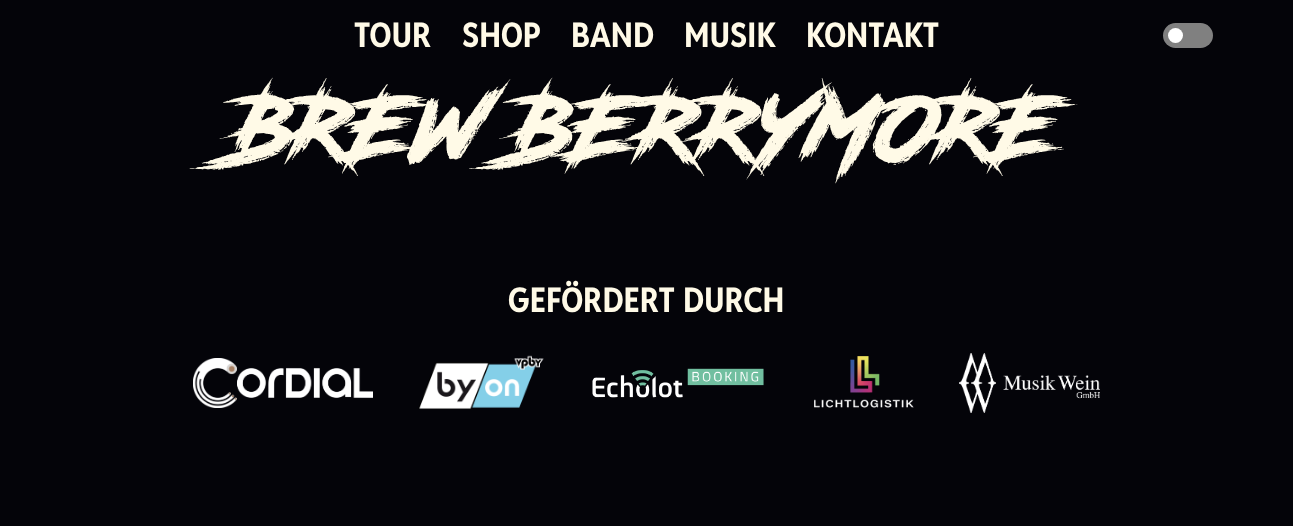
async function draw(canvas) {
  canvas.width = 1293
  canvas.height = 526
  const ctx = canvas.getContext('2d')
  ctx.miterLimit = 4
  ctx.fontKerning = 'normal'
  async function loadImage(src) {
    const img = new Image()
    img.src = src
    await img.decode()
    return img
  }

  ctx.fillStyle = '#fff'
  ctx.fillRect(0, 0, 1293, 526)
  ctx.fillStyle = '#040409'
  ctx.beginPath()
  ctx.moveTo(0, 5)
  ctx.lineTo(0, 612)
  ctx.lineTo(1293, 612)
  ctx.lineTo(1293, -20)
  ctx.closePath()
  ctx.fill()
  ctx.fillRect(0, 0, 259, 5)
  ctx.font = 'bold 34px Reddit Sans Condensed'
  ctx.fillStyle = '#fffae7'
  ctx.fillText('TOUR', 354, 47)
  ctx.fillText('SHOP', 462, 47)
  ctx.fillText('BAND', 571, 47)
  ctx.fillText('MUSIK', 684, 47)
  ctx.fillText('KONTAKT', 806, 47)
  ctx.fillStyle = '#808080'
  ctx.beginPath()
  ctx.roundRect(1163, 23, 50, 25, 12.5)
  ctx.fill()
  ctx.fillStyle = '#fff'
  ctx.beginPath()
  ctx.arc(1175.5, 35.5, 7.5, 0, 2 * Math.PI)
  ctx.fill()
  ctx.font = '90px Road Rage'
  ctx.fillStyle = '#fffae7'
  ctx.fillText('BREW BERRYMORE', 234, 156)
  ctx.font = 'bold 34px Reddit Sans Condensed'
  ctx.fillText('GEFÖRDERT DURCH', 508, 312)
  ctx.drawImage(await loadImage('image0.png'), 193, 358, 180, 50)
  ctx.drawImage(await loadImage('image1.png'), 418, 355, 126, 54)
  ctx.drawImage(await loadImage('image2.png'), 592, 368, 172, 30)
  ctx.drawImage(await loadImage('image3.png'), 814, 356, 100, 52)
  ctx.drawImage(await loadImage('image4.png'), 959, 353, 141, 60)
}

draw(document.querySelector('canvas'))
